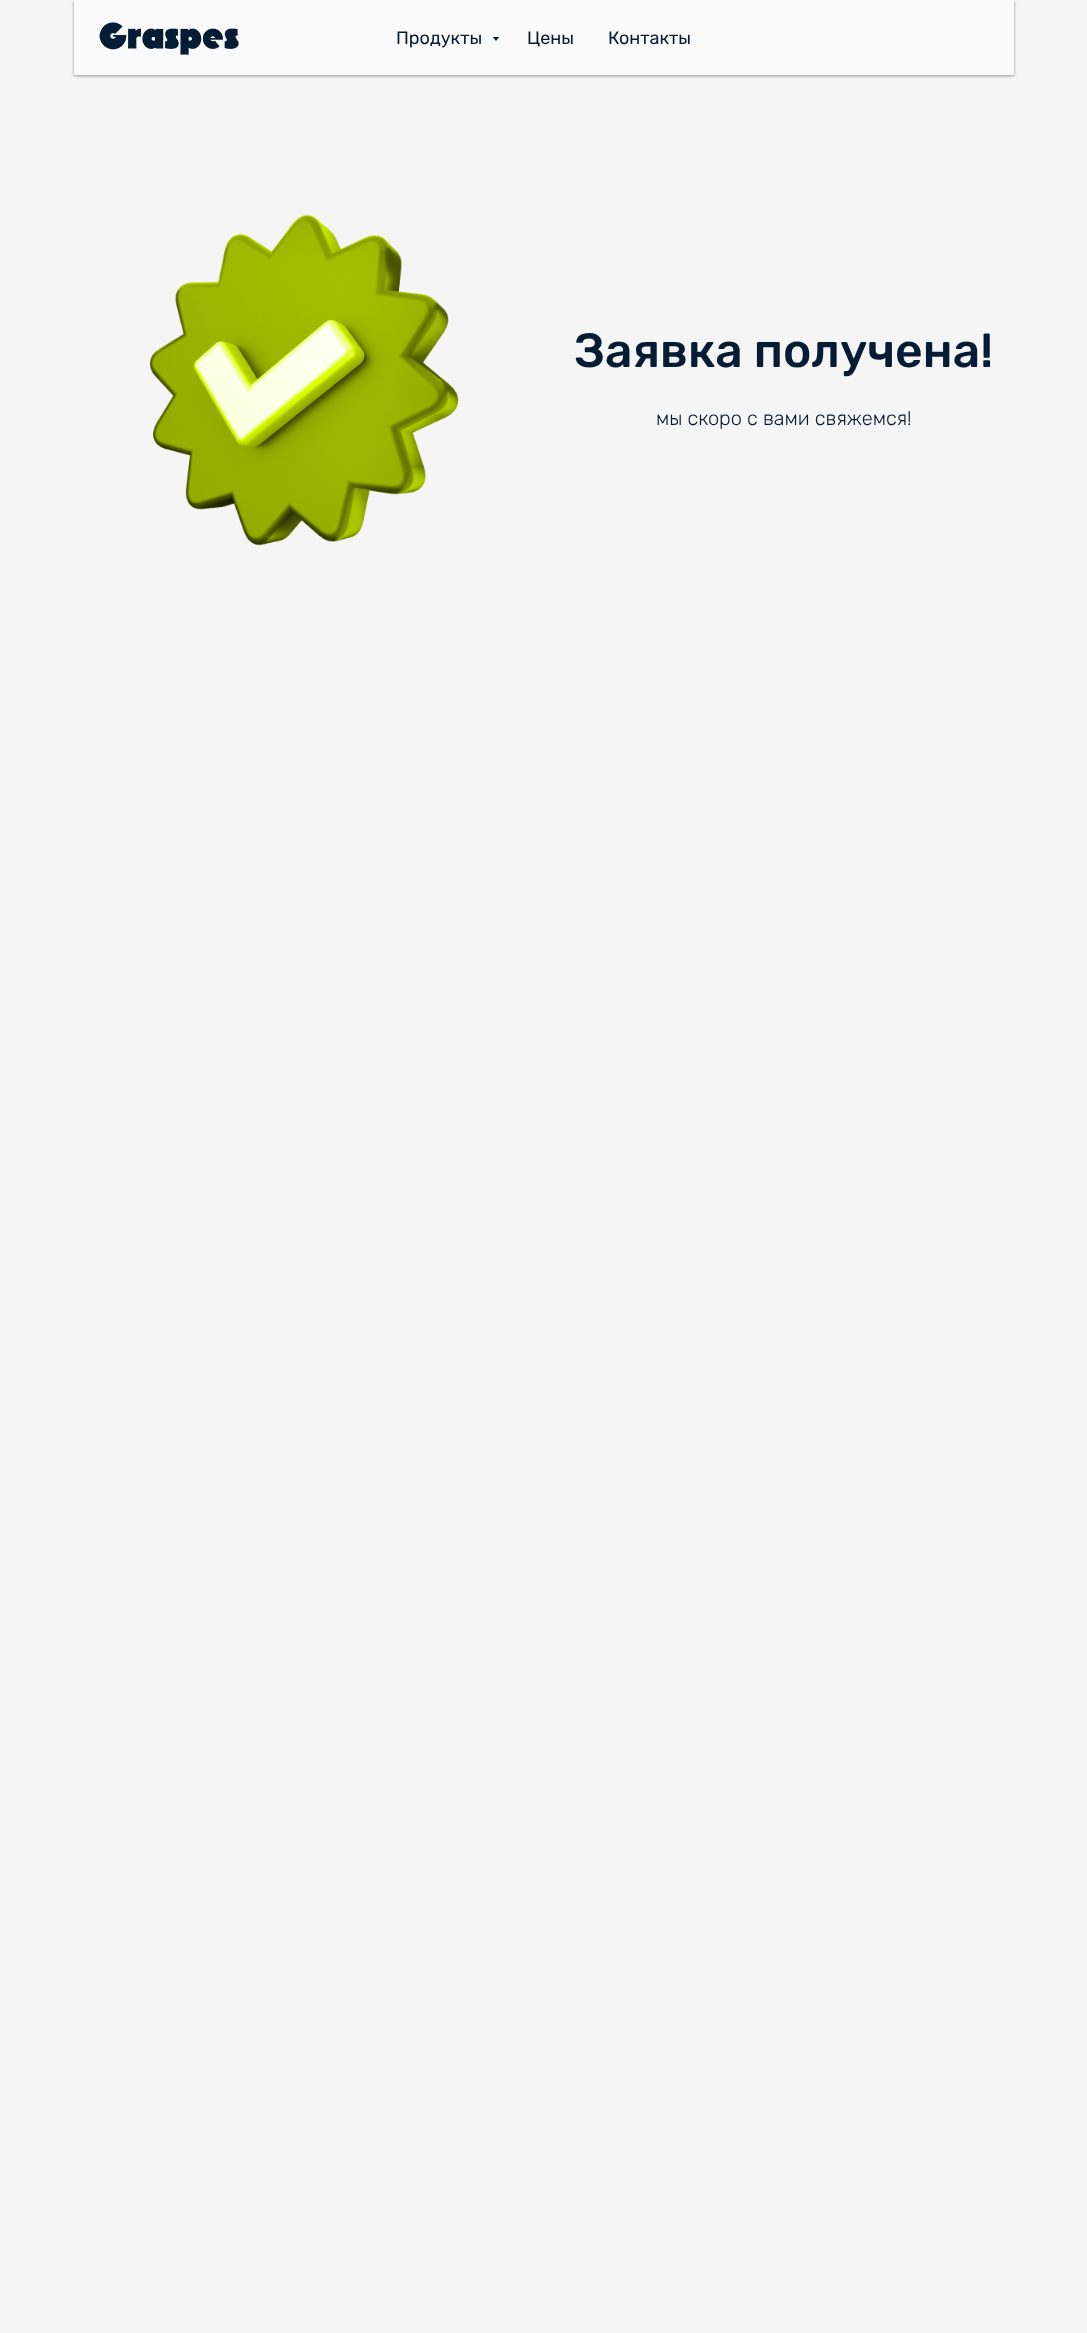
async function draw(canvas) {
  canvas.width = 1087
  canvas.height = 2333
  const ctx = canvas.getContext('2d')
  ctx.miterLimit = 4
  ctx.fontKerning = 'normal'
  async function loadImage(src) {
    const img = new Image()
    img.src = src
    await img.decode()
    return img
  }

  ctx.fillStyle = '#f5f5f5'
  ctx.fillRect(0, 0, 1087, 2333)
  ctx.fillStyle = '#00000066'
  ctx.filter = 'blur(1.5px)'
  ctx.beginPath()
  ctx.roundRect(74, 1, 940, 75, 1)
  ctx.fill()
  ctx.filter = 'none'
  ctx.fillStyle = '#fafafa'
  ctx.beginPath()
  ctx.roundRect(74, 0, 940, 75, 1)
  ctx.fill()
  ctx.drawImage(await loadImage('image0.png'), 99, 22, 140, 33)
  ctx.font = '18px Rubik'
  ctx.fillStyle = '#061c34'
  ctx.fillText('Продукты', 396, 44)
  ctx.beginPath()
  ctx.moveTo(493, 37)
  ctx.lineTo(499, 37)
  ctx.lineTo(496, 41)
  ctx.closePath()
  ctx.fill()
  ctx.fillText('Цены', 527, 44)
  ctx.fillText('Контакты', 608, 44)
  ctx.drawImage(await loadImage('image1.png'), 150, 214, 309, 332)
  ctx.font = '500 48px Rubik'
  ctx.fillText('Заявка получена!', 574, 367)
  ctx.font = '300 20px Rubik'
  ctx.fillText('мы скоро с вами свяжемся!', 656, 425)
}

draw(document.querySelector('canvas'))
